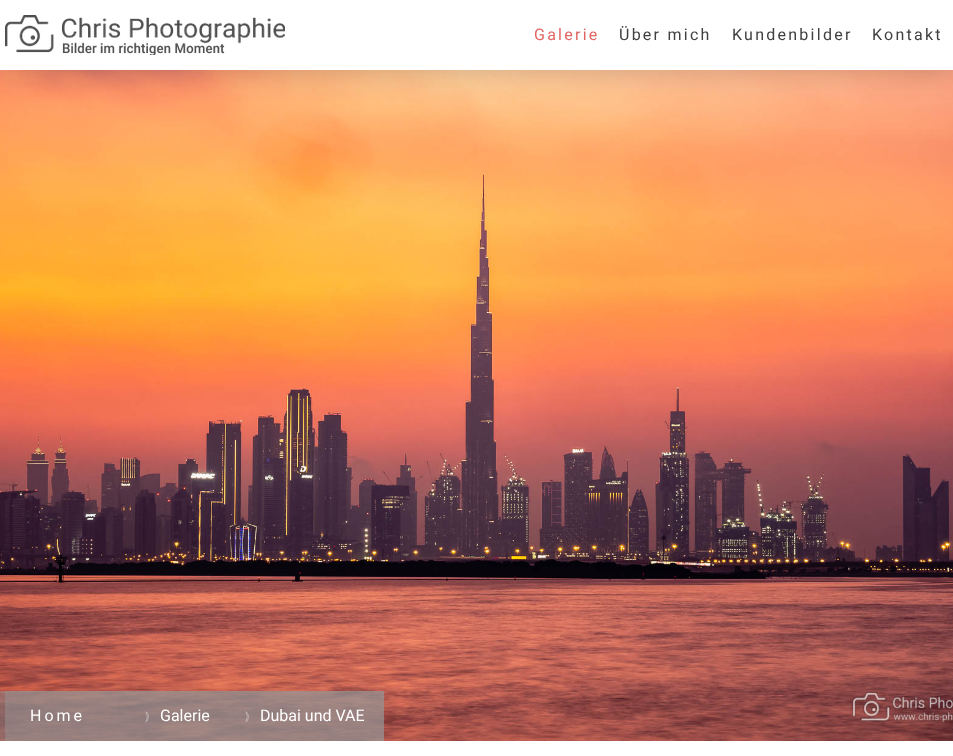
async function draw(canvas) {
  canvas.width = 953
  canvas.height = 756
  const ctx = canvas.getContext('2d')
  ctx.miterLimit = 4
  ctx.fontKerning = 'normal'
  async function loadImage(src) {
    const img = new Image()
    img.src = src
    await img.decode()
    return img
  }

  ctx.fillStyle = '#fff'
  ctx.fillRect(0, 0, 953, 756)
  ctx.drawImage(await loadImage('image1.png'), 0, 70, 953, 671)
  ctx.fillStyle = '#00000033'
  ctx.filter = 'blur(15px)'
  ctx.beginPath()
  ctx.rect(0, 0, 953, 70)
  ctx.fill()
  ctx.filter = 'none'
  ctx.fillStyle = '#fff'
  ctx.fillRect(0, 0, 953, 70)
  ctx.drawImage(await loadImage('image0.png'), 5, 15, 280, 40)
  ctx.letterSpacing = '2.25px'
  ctx.font = '16px Roboto'
  ctx.fillStyle = '#e26563'
  ctx.fillText('Galerie', 534, 40)
  ctx.fillStyle = '#404040'
  ctx.fillText('Über mich', 619, 40)
  ctx.fillText('Kundenbilder', 732, 40)
  ctx.fillText('Kontakt', 872, 40)
  ctx.fillStyle = '#96969678'
  ctx.fillRect(5, 691, 379, 50)
  ctx.fillRect(25, 691, 359, 50)
  ctx.fillRect(0, 691, 25, 50)
  ctx.letterSpacing = '3px'
  ctx.fillStyle = '#fff'
  ctx.fillText('Home', 30, 721)
  ctx.letterSpacing = '0px'
  ctx.font = '13px FreeSerif'
  ctx.fillStyle = '#c9bebe'
  ctx.fillText('⦆', 145, 720)
  ctx.font = '16px Roboto'
  ctx.fillStyle = '#fff'
  ctx.fillText('Galerie', 160, 721)
  ctx.font = '13px FreeSerif'
  ctx.fillStyle = '#c9bebe'
  ctx.fillText('⦆', 245, 720)
  ctx.font = '16px Roboto'
  ctx.fillStyle = '#fff'
  ctx.fillText('Dubai und VAE', 260, 721)
}

draw(document.querySelector('canvas'))
